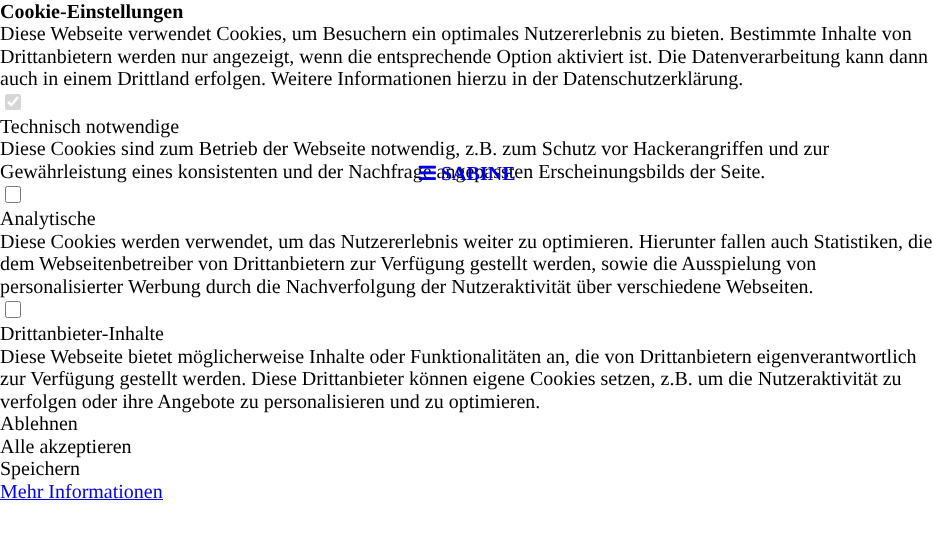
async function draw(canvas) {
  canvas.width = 933
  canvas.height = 545
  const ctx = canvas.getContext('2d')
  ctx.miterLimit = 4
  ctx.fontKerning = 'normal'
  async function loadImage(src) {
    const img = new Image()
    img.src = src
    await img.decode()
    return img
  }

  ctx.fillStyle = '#fff'
  ctx.fillRect(0, 0, 933, 545)
  ctx.font = 'bold 20px Liberation Serif'
  ctx.fillStyle = '#000'
  ctx.fillText('Cookie-Einstellungen', 0, 18)
  ctx.font = '20px Liberation Serif'
  ctx.fillText('Diese Webseite verwendet Cookies, um Besuchern ein optimales Nutzererlebnis zu bieten. Bestimmte Inhalte von', 0, 40)
  ctx.fillText('Drittanbietern werden nur angezeigt, wenn die entsprechende Option aktiviert ist. Die Datenverarbeitung kann dann', 0, 63)
  ctx.fillText('auch in einem Drittland erfolgen. Weitere Informationen hierzu in der Datenschutzerklärung.', 0, 85)
  ctx.fillStyle = '#d6d6d6'
  ctx.beginPath()
  ctx.roundRect(5, 94, 16, 16, 2.5)
  ctx.fill()
  ctx.beginPath()
  ctx.moveTo(8, 102)
  ctx.lineTo(11.5, 105)
  ctx.lineTo(18, 97)
  ctx.strokeStyle = '#fff'
  ctx.lineWidth = 2.6
  ctx.stroke()
  ctx.fillStyle = '#000'
  ctx.fillText('Technisch notwendige', 0, 133)
  ctx.fillText('Diese Cookies sind zum Betrieb der Webseite notwendig, z.B. zum Schutz vor Hackerangriffen und zur', 0, 155)
  ctx.fillText('Gewährleistung eines konsistenten und der Nachfrage angepassten Erscheinungsbilds der Seite.', 0, 178)
  ctx.beginPath()
  ctx.roundRect(5.5, 186.5, 15, 16, 2)
  ctx.strokeStyle = '#767676'
  ctx.lineWidth = 1
  ctx.stroke()
  ctx.fillText('Analytische', 0, 225)
  ctx.fillText('Diese Cookies werden verwendet, um das Nutzererlebnis weiter zu optimieren. Hierunter fallen auch Statistiken, die', 0, 248)
  ctx.fillText('dem Webseitenbetreiber von Drittanbietern zur Verfügung gestellt werden, sowie die Ausspielung von', 0, 270)
  ctx.fillText('personalisierter Werbung durch die Nachverfolgung der Nutzeraktivität über verschiedene Webseiten.', 0, 293)
  ctx.beginPath()
  ctx.roundRect(5.5, 301.5, 15, 16, 2)
  ctx.stroke()
  ctx.fillText('Drittanbieter-Inhalte', 0, 340)
  ctx.fillText('Diese Webseite bietet möglicherweise Inhalte oder Funktionalitäten an, die von Drittanbietern eigenverantwortlich', 0, 363)
  ctx.fillText('zur Verfügung gestellt werden. Diese Drittanbieter können eigene Cookies setzen, z.B. um die Nutzeraktivität zu', 0, 385)
  ctx.fillText('verfolgen oder ihre Angebote zu personalisieren und zu optimieren.', 0, 408)
  ctx.fillText('Ablehnen', 0, 430)
  ctx.fillText('Alle akzeptieren', 0, 453)
  ctx.fillText('Speichern', 0, 475)
  ctx.fillStyle = '#00e'
  ctx.fillText('Mehr Informationen', 0, 498)
  ctx.fillRect(0, 499, 163, 1)
  ctx.drawImage(await loadImage('image0.png'), 418, 165, 18, 15)
  ctx.font = 'bold 20px Liberation Serif'
  ctx.fillText('SABINE', 441, 180)
}

draw(document.querySelector('canvas'))
